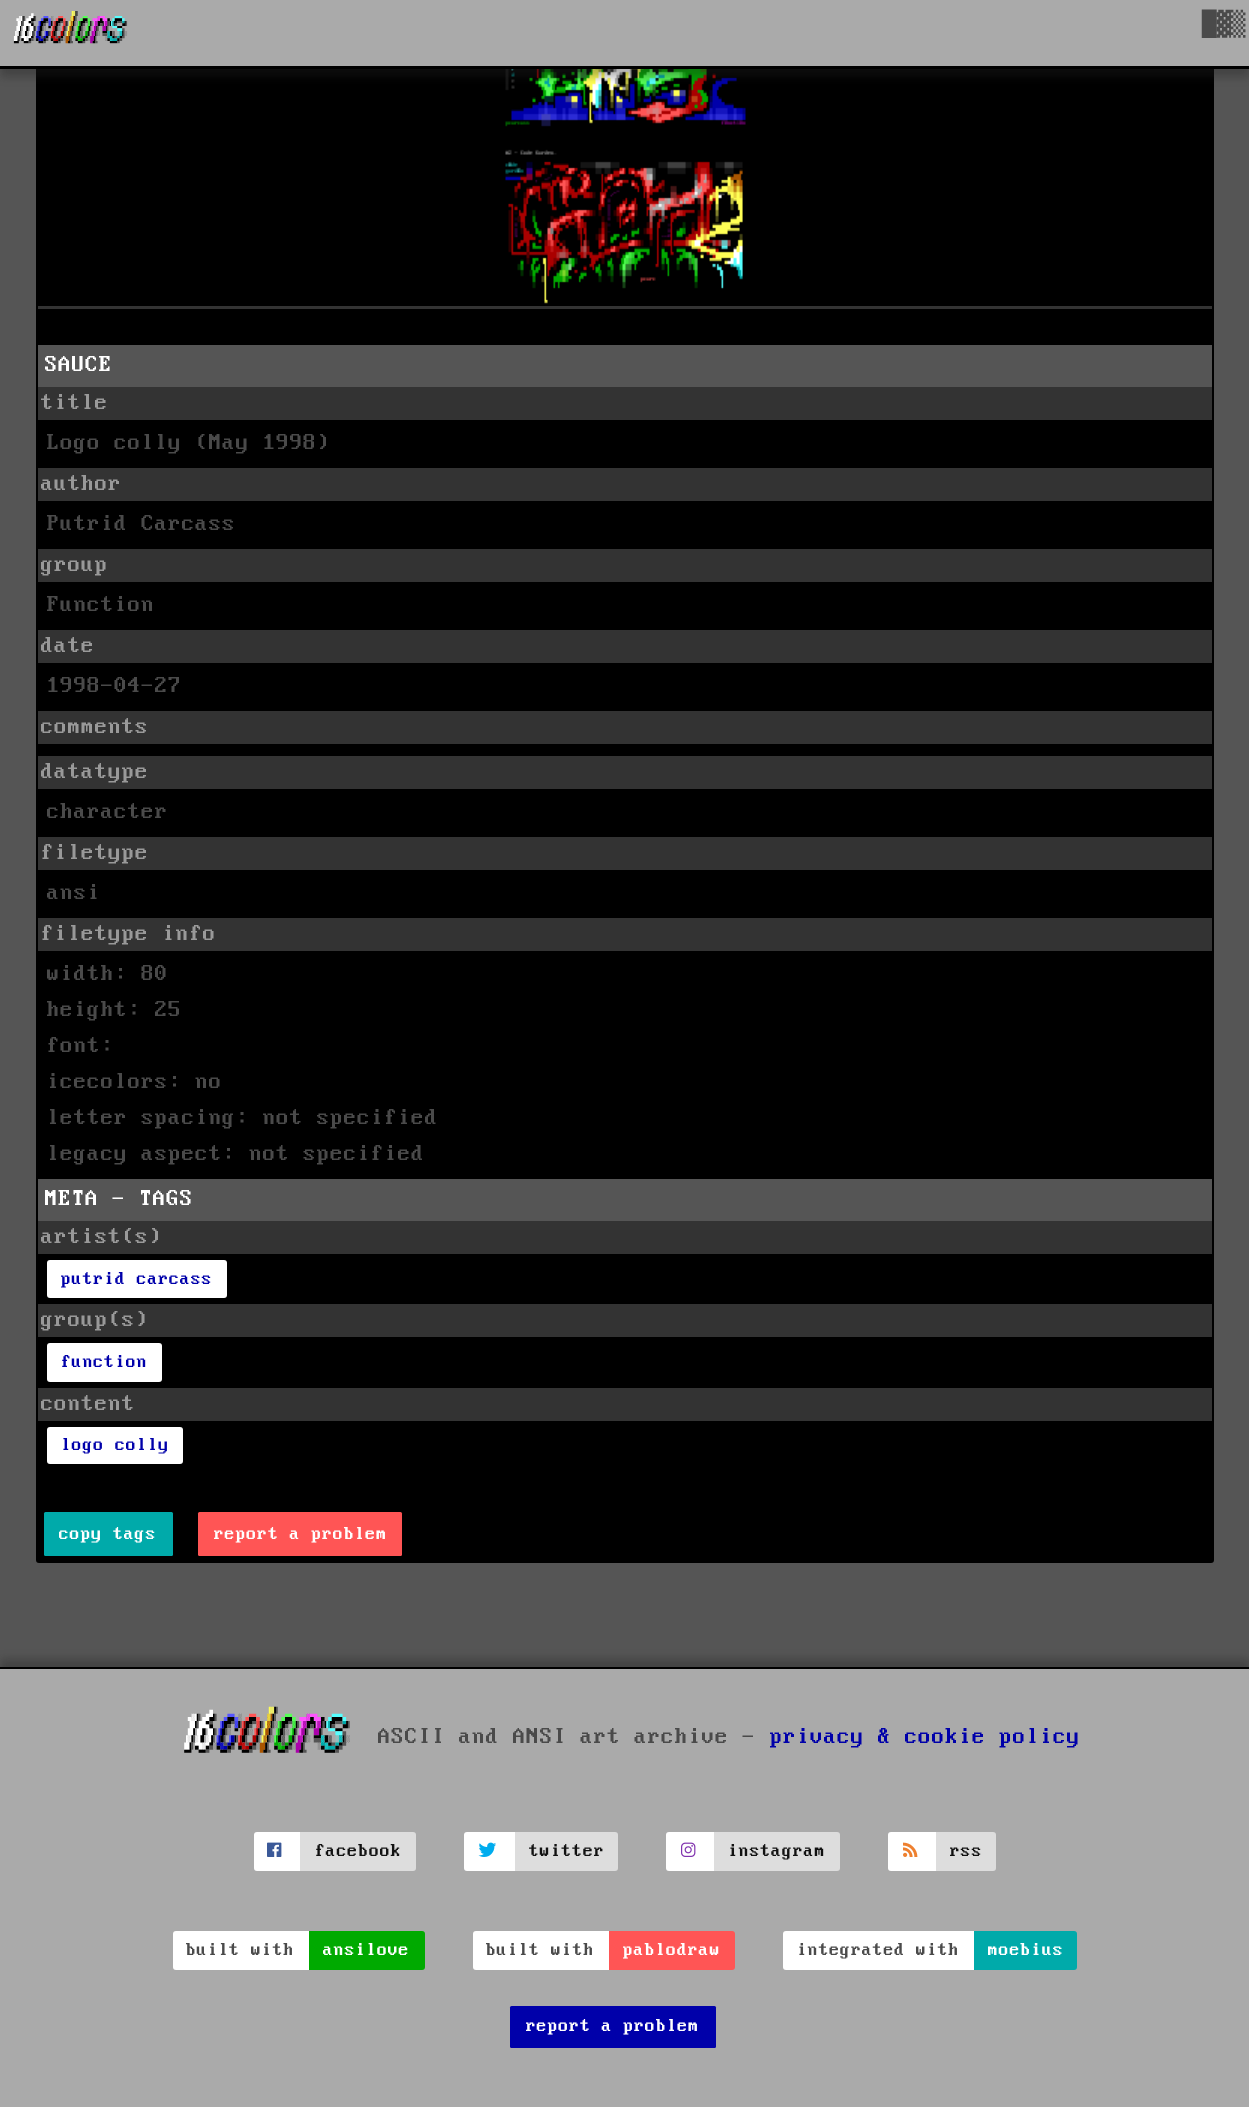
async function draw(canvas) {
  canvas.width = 1249
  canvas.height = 2107
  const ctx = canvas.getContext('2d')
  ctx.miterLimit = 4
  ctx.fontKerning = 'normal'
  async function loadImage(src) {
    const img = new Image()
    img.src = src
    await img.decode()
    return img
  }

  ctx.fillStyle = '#555'
  ctx.fillRect(0, 0, 1249, 2107)
  ctx.fillStyle = '#000'
  ctx.beginPath()
  ctx.roundRect(37, -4, 1176, 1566, 2)
  ctx.fill()
  ctx.strokeStyle = '#000'
  ctx.lineWidth = 2
  ctx.stroke()
  ctx.drawImage(await loadImage('image1.png'), 505, 69, 241, 235)
  ctx.fillStyle = '#22222259'
  ctx.filter = 'blur(4px)'
  ctx.beginPath()
  ctx.rect(0, 8, 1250, 69)
  ctx.fill()
  ctx.filter = 'none'
  ctx.fillStyle = '#aaa'
  ctx.fillRect(0, 0, 1249, 66)
  ctx.fillStyle = '#000'
  ctx.fillRect(0, 66, 1249, 3)
  ctx.drawImage(await loadImage('image0.png'), 13, 11, 115, 33)
  ctx.font = '24px DejaVu Sans Mono'
  ctx.fillStyle = '#4a4a4a'
  ctx.fillText('█▓▒', 1202, 32)
  ctx.fillStyle = '#333'
  ctx.fillRect(38, 306, 1174, 3)
  ctx.fillStyle = '#555'
  ctx.fillRect(38, 345, 1174, 42)
  ctx.font = '24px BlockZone'
  ctx.fillStyle = '#fff'
  ctx.fillText('SAUCE', 45, 371)
  ctx.fillStyle = '#333'
  ctx.fillRect(38, 387, 1174, 33)
  ctx.fillStyle = '#999'
  ctx.fillText('title', 41, 409)
  ctx.fillStyle = '#4a4a4a'
  ctx.fillText('Logo colly (May 1998)', 47, 449)
  ctx.fillStyle = '#333'
  ctx.fillRect(38, 468, 1174, 33)
  ctx.fillStyle = '#999'
  ctx.fillText('author', 41, 490)
  ctx.fillStyle = '#4a4a4a'
  ctx.fillText('Putrid Carcass', 47, 530)
  ctx.fillStyle = '#333'
  ctx.fillRect(38, 549, 1174, 33)
  ctx.fillStyle = '#999'
  ctx.fillText('group', 41, 571)
  ctx.fillStyle = '#4a4a4a'
  ctx.fillText('Function', 47, 611)
  ctx.fillStyle = '#333'
  ctx.fillRect(38, 630, 1174, 33)
  ctx.fillStyle = '#999'
  ctx.fillText('date', 41, 652)
  ctx.fillStyle = '#4a4a4a'
  ctx.fillText('1998-04-27', 47, 692)
  ctx.fillStyle = '#333'
  ctx.fillRect(38, 711, 1174, 33)
  ctx.fillStyle = '#999'
  ctx.fillText('comments', 41, 733)
  ctx.fillStyle = '#333'
  ctx.fillRect(38, 756, 1174, 33)
  ctx.fillStyle = '#999'
  ctx.fillText('datatype', 41, 778)
  ctx.fillStyle = '#4a4a4a'
  ctx.fillText('character', 47, 818)
  ctx.fillStyle = '#333'
  ctx.fillRect(38, 837, 1174, 33)
  ctx.fillStyle = '#999'
  ctx.fillText('filetype', 41, 859)
  ctx.fillStyle = '#4a4a4a'
  ctx.fillText('ansi', 47, 899)
  ctx.fillStyle = '#333'
  ctx.fillRect(38, 918, 1174, 33)
  ctx.fillStyle = '#999'
  ctx.fillText('filetype info', 41, 940)
  ctx.fillStyle = '#4a4a4a'
  ctx.fillText('width: 80', 47, 980)
  ctx.fillText('height: 25', 47, 1016)
  ctx.fillText('font:', 47, 1052)
  ctx.fillText('icecolors: no', 47, 1088)
  ctx.fillText('letter spacing: not specified', 47, 1124)
  ctx.fillText('legacy aspect: not specified', 47, 1160)
  ctx.fillStyle = '#555'
  ctx.fillRect(38, 1179, 1174, 42)
  ctx.fillStyle = '#fff'
  ctx.fillText('META - TAGS', 45, 1205)
  ctx.fillStyle = '#333'
  ctx.fillRect(38, 1221, 1174, 33)
  ctx.fillStyle = '#999'
  ctx.fillText('artist(s)', 41, 1243)
  ctx.fillStyle = '#fff'
  ctx.beginPath()
  ctx.roundRect(47, 1260, 180, 38, 3)
  ctx.fill()
  ctx.font = '19.25px BlockZone'
  ctx.fillStyle = '#00a'
  ctx.fillText('putrid carcass', 61, 1284)
  ctx.fillStyle = '#333'
  ctx.fillRect(38, 1304, 1174, 33)
  ctx.font = '24px BlockZone'
  ctx.fillStyle = '#999'
  ctx.fillText('group(s)', 41, 1326)
  ctx.fillStyle = '#fff'
  ctx.beginPath()
  ctx.roundRect(47, 1343, 115, 39, 3)
  ctx.fill()
  ctx.font = '19.25px BlockZone'
  ctx.fillStyle = '#00a'
  ctx.fillText('function', 61, 1367)
  ctx.fillStyle = '#333'
  ctx.fillRect(38, 1388, 1174, 33)
  ctx.font = '24px BlockZone'
  ctx.fillStyle = '#999'
  ctx.fillText('content', 41, 1410)
  ctx.fillStyle = '#fff'
  ctx.beginPath()
  ctx.roundRect(47, 1427, 136, 37, 3)
  ctx.fill()
  ctx.font = '19.25px BlockZone'
  ctx.fillStyle = '#00a'
  ctx.fillText('logo colly', 61, 1450)
  ctx.fillStyle = '#0aa'
  ctx.beginPath()
  ctx.roundRect(44, 1512, 129, 44, 1.5)
  ctx.fill()
  ctx.fillStyle = '#fff'
  ctx.fillText('copy tags', 59, 1539)
  ctx.fillStyle = '#f55'
  ctx.beginPath()
  ctx.roundRect(198, 1512, 204, 44, 1.5)
  ctx.fill()
  ctx.fillStyle = '#fff'
  ctx.fillText('report a problem', 214, 1539)
  ctx.fillStyle = '#22222259'
  ctx.filter = 'blur(4px)'
  ctx.beginPath()
  ctx.rect(0, 1659, 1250, 441)
  ctx.fill()
  ctx.filter = 'none'
  ctx.fillStyle = '#aaa'
  ctx.fillRect(0, 1669, 1249, 438)
  ctx.fillStyle = '#000'
  ctx.fillRect(0, 1667, 1249, 2)
  ctx.drawImage(await loadImage('image2.png'), 184, 1706, 166, 47)
  ctx.font = '24px BlockZone'
  ctx.fillStyle = '#4a4a4a'
  ctx.fillText('ASCII and ANSI art archive -', 378, 1743)
  ctx.fillStyle = '#00a'
  ctx.fillText('privacy & cookie policy', 770, 1743)
  ctx.fillStyle = '#fff'
  ctx.beginPath()
  ctx.roundRect(254, 1832, 46, 39, [3, 0, 0, 3])
  ctx.fill()
  ctx.drawImage(await loadImage('image3.png'), 267, 1842, 15, 15)
  ctx.fillStyle = '#ddd'
  ctx.beginPath()
  ctx.roundRect(300, 1832, 116, 39, [0, 3, 3, 0])
  ctx.fill()
  ctx.font = '19.25px BlockZone'
  ctx.fillStyle = '#111'
  ctx.fillText('facebook', 315, 1856)
  ctx.fillStyle = '#fff'
  ctx.beginPath()
  ctx.roundRect(464, 1832, 51, 39, [3, 0, 0, 3])
  ctx.fill()
  ctx.drawImage(await loadImage('image4.png'), 478, 1842, 18, 15)
  ctx.fillStyle = '#ddd'
  ctx.beginPath()
  ctx.roundRect(515, 1832, 103, 39, [0, 3, 3, 0])
  ctx.fill()
  ctx.fillStyle = '#111'
  ctx.fillText('twitter', 529, 1856)
  ctx.fillStyle = '#fff'
  ctx.beginPath()
  ctx.roundRect(666, 1832, 48, 39, [3, 0, 0, 3])
  ctx.fill()
  ctx.drawImage(await loadImage('image5.png'), 681, 1842, 15, 15)
  ctx.fillStyle = '#ddd'
  ctx.beginPath()
  ctx.roundRect(714, 1832, 126, 39, [0, 3, 3, 0])
  ctx.fill()
  ctx.fillStyle = '#111'
  ctx.fillText('instagram', 728, 1856)
  ctx.fillStyle = '#fff'
  ctx.beginPath()
  ctx.roundRect(888, 1832, 48, 39, [3, 0, 0, 3])
  ctx.fill()
  ctx.drawImage(await loadImage('image6.png'), 903, 1842, 15, 15)
  ctx.fillStyle = '#ddd'
  ctx.beginPath()
  ctx.roundRect(936, 1832, 60, 39, [0, 3, 3, 0])
  ctx.fill()
  ctx.fillStyle = '#111'
  ctx.fillText('rss', 950, 1856)
  ctx.fillStyle = '#fff'
  ctx.beginPath()
  ctx.roundRect(173, 1931, 136, 39, [3, 0, 0, 3])
  ctx.fill()
  ctx.fillStyle = '#4a4a4a'
  ctx.fillText('built with', 186, 1955)
  ctx.fillStyle = '#0a0'
  ctx.beginPath()
  ctx.roundRect(309, 1931, 116, 39, [0, 3, 3, 0])
  ctx.fill()
  ctx.fillStyle = '#fff'
  ctx.fillText('ansilove', 323, 1955)
  ctx.beginPath()
  ctx.roundRect(473, 1931, 136, 39, [3, 0, 0, 3])
  ctx.fill()
  ctx.fillStyle = '#4a4a4a'
  ctx.fillText('built with', 486, 1955)
  ctx.fillStyle = '#f55'
  ctx.beginPath()
  ctx.roundRect(609, 1931, 126, 39, [0, 3, 3, 0])
  ctx.fill()
  ctx.fillStyle = '#fff'
  ctx.fillText('pablodraw', 623, 1955)
  ctx.beginPath()
  ctx.roundRect(783, 1931, 191, 39, [3, 0, 0, 3])
  ctx.fill()
  ctx.fillStyle = '#4a4a4a'
  ctx.fillText('integrated with', 797, 1955)
  ctx.fillStyle = '#0aa'
  ctx.beginPath()
  ctx.roundRect(974, 1931, 103, 39, [0, 3, 3, 0])
  ctx.fill()
  ctx.fillStyle = '#fff'
  ctx.fillText('moebius', 988, 1955)
  ctx.fillStyle = '#00a'
  ctx.beginPath()
  ctx.roundRect(510, 2006, 206, 42, 1.5)
  ctx.fill()
  ctx.fillStyle = '#fff'
  ctx.fillText('report a problem', 526, 2031)
}

draw(document.querySelector('canvas'))
